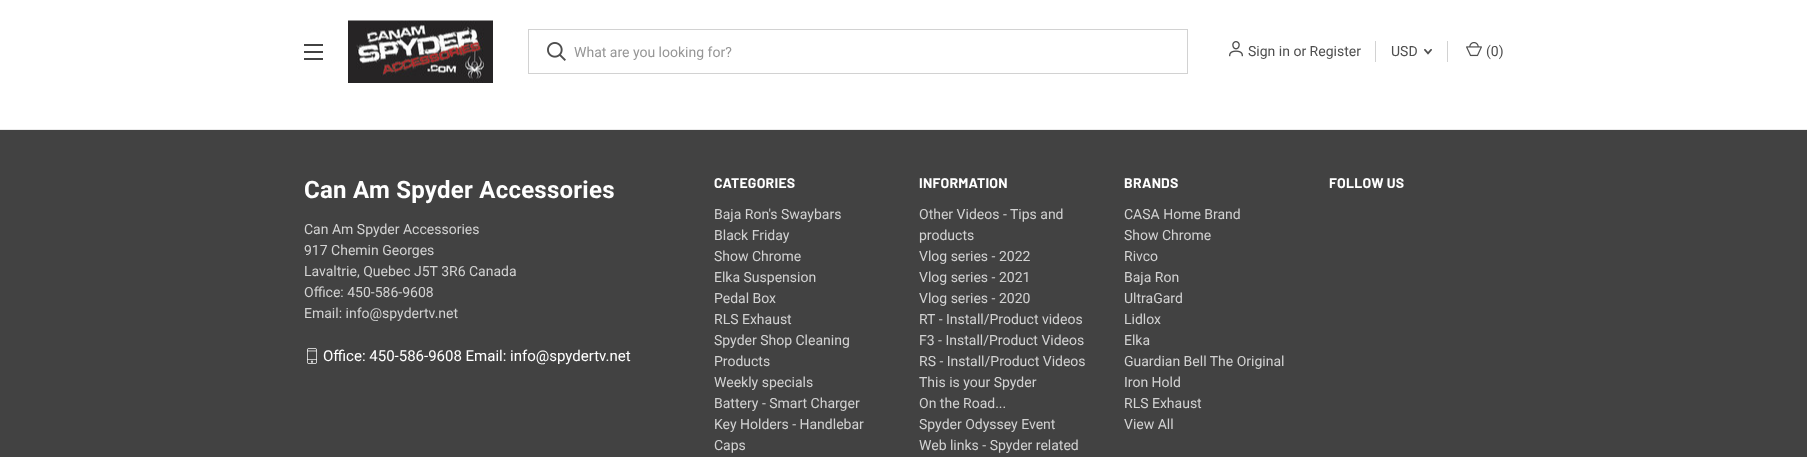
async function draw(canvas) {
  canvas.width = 1807
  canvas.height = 457
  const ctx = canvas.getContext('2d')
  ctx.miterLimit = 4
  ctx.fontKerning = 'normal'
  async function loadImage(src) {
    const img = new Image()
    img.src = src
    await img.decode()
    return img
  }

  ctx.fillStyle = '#fff'
  ctx.fillRect(0, 0, 1807, 457)
  ctx.fillStyle = '#424242'
  ctx.fillRect(304, 51, 19, 2)
  ctx.fillRect(304, 44, 19, 2)
  ctx.fillRect(304, 58, 19, 2)
  ctx.drawImage(await loadImage('image0.png'), 348, 20, 145, 63)
  ctx.strokeStyle = '#d2d2d2'
  ctx.strokeRect(528.5, 29.5, 659, 44)
  ctx.drawImage(await loadImage('image1.png'), 547, 42, 19, 19)
  ctx.font = '14px Roboto'
  ctx.fillStyle = '#969696'
  ctx.fillText('What are you looking for?', 574, 57)
  ctx.drawImage(await loadImage('image2.png'), 1229, 41, 14, 16)
  ctx.fillStyle = '#4e4e4e'
  ctx.fillText('Sign in or Register', 1248, 56)
  ctx.fillStyle = '#d2d2d2'
  ctx.fillRect(1375, 41, 1, 21)
  ctx.fillStyle = '#4e4e4e'
  ctx.fillText('USD', 1391, 56)
  ctx.drawImage(await loadImage('image3.png'), 1424, 48, 8, 7)
  ctx.fillStyle = '#d2d2d2'
  ctx.fillRect(1447, 41, 1, 21)
  ctx.drawImage(await loadImage('image4.png'), 1466, 42, 16, 15)
  ctx.fillStyle = '#4e4e4e'
  ctx.fillText('(0)', 1486, 56)
  ctx.fillStyle = '#424242'
  ctx.fillRect(0, 130, 1807, 327)
  ctx.fillStyle = '#ebebeb'
  ctx.fillRect(0, 129, 1807, 1)
  ctx.letterSpacing = '0.25px'
  ctx.font = 'bold 24px Roboto'
  ctx.fillStyle = '#fff'
  ctx.fillText('Can Am Spyder Accessories', 304, 198)
  ctx.letterSpacing = '0px'
  ctx.font = '14px Roboto'
  ctx.fillStyle = '#d2d2d2'
  ctx.fillText('Can Am Spyder Accessories', 304, 234)
  ctx.fillText('917 Chemin Georges', 304, 255)
  ctx.fillText('Lavaltrie, Quebec J5T 3R6 Canada', 304, 276)
  ctx.fillText('Office: 450-586-9608', 304, 297)
  ctx.fillText('Email: info@spydertv.net', 304, 318)
  ctx.drawImage(await loadImage('image5.png'), 307, 348, 10, 16)
  ctx.font = '15px Roboto'
  ctx.fillStyle = '#fff'
  ctx.fillText('Office: 450-586-9608 Email: info@spydertv.net', 323, 361)
  ctx.letterSpacing = '0.25px'
  ctx.font = 'bold 14px Barlow'
  ctx.fillText('CATEGORIES', 714, 188)
  ctx.letterSpacing = '0px'
  ctx.font = '14px Roboto'
  ctx.fillStyle = '#d2d2d2'
  ctx.fillText('Baja Ron\'s Swaybars', 714, 219)
  ctx.fillText('Black Friday', 714, 240)
  ctx.fillText('Show Chrome', 714, 261)
  ctx.fillText('Elka Suspension', 714, 282)
  ctx.fillText('Pedal Box', 714, 303)
  ctx.fillText('RLS Exhaust', 714, 324)
  ctx.fillText('Spyder Shop Cleaning', 714, 345)
  ctx.fillText('Products', 714, 366)
  ctx.fillText('Weekly specials', 714, 387)
  ctx.fillText('Battery - Smart Charger', 714, 408)
  ctx.fillText('Key Holders - Handlebar', 714, 429)
  ctx.fillText('Caps', 714, 450)
  ctx.letterSpacing = '0.25px'
  ctx.font = 'bold 14px Barlow'
  ctx.fillStyle = '#fff'
  ctx.fillText('INFORMATION', 919, 188)
  ctx.letterSpacing = '0px'
  ctx.font = '14px Roboto'
  ctx.fillStyle = '#d2d2d2'
  ctx.fillText('Other Videos - Tips and', 919, 219)
  ctx.fillText('products', 919, 240)
  ctx.fillText('Vlog series - 2022', 919, 261)
  ctx.fillText('Vlog series - 2021', 919, 282)
  ctx.fillText('Vlog series - 2020', 919, 303)
  ctx.fillText('RT - Install/Product videos', 919, 324)
  ctx.fillText('F3 - Install/Product Videos', 919, 345)
  ctx.fillText('RS - Install/Product Videos', 919, 366)
  ctx.fillText('This is your Spyder', 919, 387)
  ctx.fillText('On the Road...', 919, 408)
  ctx.fillText('Spyder Odyssey Event', 919, 429)
  ctx.fillText('Web links - Spyder related', 919, 450)
  ctx.letterSpacing = '0.25px'
  ctx.font = 'bold 14px Barlow'
  ctx.fillStyle = '#fff'
  ctx.fillText('BRANDS', 1124, 188)
  ctx.letterSpacing = '0px'
  ctx.font = '14px Roboto'
  ctx.fillStyle = '#d2d2d2'
  ctx.fillText('CASA Home Brand', 1124, 219)
  ctx.fillText('Show Chrome', 1124, 240)
  ctx.fillText('Rivco', 1124, 261)
  ctx.fillText('Baja Ron', 1124, 282)
  ctx.fillText('UltraGard', 1124, 303)
  ctx.fillText('Lidlox', 1124, 324)
  ctx.fillText('Elka', 1124, 345)
  ctx.fillText('Guardian Bell The Original', 1124, 366)
  ctx.fillText('Iron Hold', 1124, 387)
  ctx.fillText('RLS Exhaust', 1124, 408)
  ctx.fillText('View All', 1124, 429)
  ctx.letterSpacing = '0.25px'
  ctx.font = 'bold 14px Barlow'
  ctx.fillStyle = '#fff'
  ctx.fillText('FOLLOW US', 1329, 188)
}

draw(document.querySelector('canvas'))
